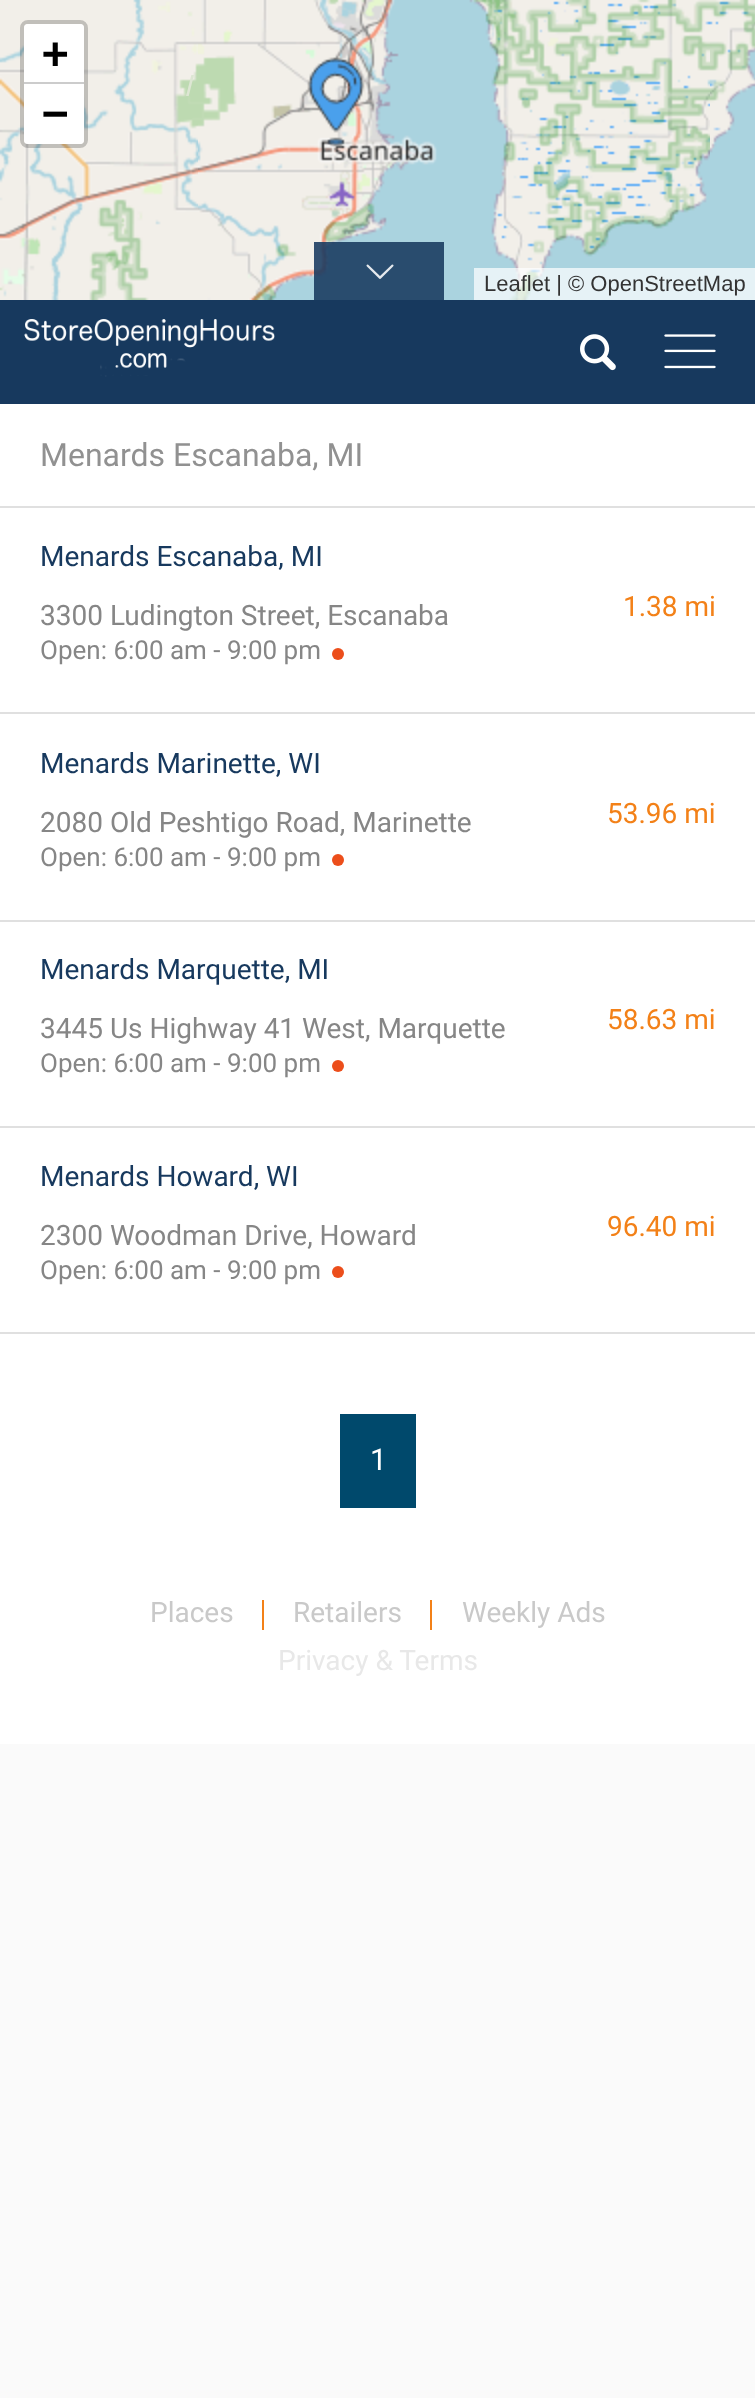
async function draw(canvas) {
  canvas.width = 755
  canvas.height = 2398
  const ctx = canvas.getContext('2d')
  ctx.miterLimit = 4
  ctx.fontKerning = 'normal'
  async function loadImage(src) {
    const img = new Image()
    img.src = src
    await img.decode()
    return img
  }

  ctx.fillStyle = '#fafafa'
  ctx.fillRect(0, 0, 755, 2398)
  ctx.drawImage(await loadImage('image0.png'), 0, 0, 198, 300)
  ctx.drawImage(await loadImage('image1.png'), 198, 0, 512, 300)
  ctx.drawImage(await loadImage('image2.png'), 710, 0, 45, 300)
  ctx.drawImage(await loadImage('image3.png'), 307, 57, 58, 90)
  ctx.beginPath()
  ctx.roundRect(22, 22, 64, 124, 6)
  ctx.strokeStyle = '#00000033'
  ctx.lineWidth = 4
  ctx.stroke()
  ctx.fillStyle = '#fff'
  ctx.beginPath()
  ctx.roundRect(24, 24, 60, 60, [4, 4, 0, 0])
  ctx.fill()
  ctx.fillStyle = '#ccc'
  ctx.fillRect(24, 82, 60, 2)
  ctx.font = 'bold 44px DejaVu Sans Mono'
  ctx.fillStyle = '#000'
  ctx.fillText('+', 42, 68)
  ctx.fillStyle = '#fff'
  ctx.beginPath()
  ctx.roundRect(24, 84, 60, 60, [0, 0, 4, 4])
  ctx.fill()
  ctx.fillStyle = '#000'
  ctx.fillText('−', 42, 128)
  ctx.fillStyle = '#ffffffb3'
  ctx.fillRect(474, 268, 281, 32)
  ctx.font = '22px Liberation Sans'
  ctx.fillStyle = '#333'
  ctx.fillText('Leaflet | © OpenStreetMap', 484, 291)
  ctx.fillStyle = '#17395e'
  ctx.fillRect(0, 300, 755, 104)
  ctx.font = 'italic 28px Roboto'
  ctx.fillStyle = '#dde6d3'
  ctx.fillText('l', 184, 96)
  ctx.drawImage(await loadImage('image4.png'), 24, 319, 251, 58)
  ctx.drawImage(await loadImage('image5.png'), 580, 334, 36, 37)
  ctx.drawImage(await loadImage('image6.png'), 664, 334, 52, 35)
  ctx.fillStyle = '#fff'
  ctx.fillRect(0, 404, 755, 1340)
  ctx.fillStyle = '#17395ee0'
  ctx.fillRect(314, 242, 130, 58)
  ctx.drawImage(await loadImage('image7.png'), 366, 264, 28, 15)
  ctx.fillStyle = '#e0e0e0'
  ctx.fillRect(0, 506, 755, 2)
  ctx.font = '32px Roboto'
  ctx.fillStyle = '#919191'
  ctx.fillText('Menards Escanaba, MI', 40, 466)
  ctx.fillStyle = '#e0e0e0'
  ctx.fillRect(0, 712, 755, 2)
  ctx.font = '28px Roboto'
  ctx.fillStyle = '#17395e'
  ctx.fillText('Menards Escanaba, MI', 40, 566)
  ctx.fillStyle = '#868686'
  ctx.fillText('3300 Ludington Street, Escanaba', 40, 625)
  ctx.fillStyle = '#f38118'
  ctx.fillText('1.38 mi', 623, 616)
  ctx.font = '26px Roboto'
  ctx.fillStyle = '#868686'
  ctx.fillText('Open: 6:00 am - 9:00 pm', 40, 659)
  ctx.fillStyle = '#ec4e1b'
  ctx.beginPath()
  ctx.arc(338, 654, 6, 0, 2 * Math.PI)
  ctx.fill()
  ctx.fillStyle = '#e0e0e0'
  ctx.fillRect(0, 920, 755, 2)
  ctx.font = '28px Roboto'
  ctx.fillStyle = '#17395e'
  ctx.fillText('Menards Marinette, WI', 40, 773)
  ctx.fillStyle = '#868686'
  ctx.fillText('2080 Old Peshtigo Road, Marinette', 40, 832)
  ctx.fillStyle = '#f38118'
  ctx.fillText('53.96 mi', 607, 823)
  ctx.font = '26px Roboto'
  ctx.fillStyle = '#868686'
  ctx.fillText('Open: 6:00 am - 9:00 pm', 40, 866)
  ctx.fillStyle = '#ec4e1b'
  ctx.beginPath()
  ctx.arc(338, 860, 6, 0, 2 * Math.PI)
  ctx.fill()
  ctx.fillStyle = '#e0e0e0'
  ctx.fillRect(0, 1126, 755, 2)
  ctx.font = '28px Roboto'
  ctx.fillStyle = '#17395e'
  ctx.fillText('Menards Marquette, MI', 40, 979)
  ctx.fillStyle = '#868686'
  ctx.fillText('3445 Us Highway 41 West, Marquette', 40, 1038)
  ctx.fillStyle = '#f38118'
  ctx.fillText('58.63 mi', 607, 1029)
  ctx.font = '26px Roboto'
  ctx.fillStyle = '#868686'
  ctx.fillText('Open: 6:00 am - 9:00 pm', 40, 1072)
  ctx.fillStyle = '#ec4e1b'
  ctx.beginPath()
  ctx.arc(338, 1066, 6, 0, 2 * Math.PI)
  ctx.fill()
  ctx.fillStyle = '#e0e0e0'
  ctx.fillRect(0, 1332, 755, 2)
  ctx.font = '28px Roboto'
  ctx.fillStyle = '#17395e'
  ctx.fillText('Menards Howard, WI', 40, 1186)
  ctx.fillStyle = '#868686'
  ctx.fillText('2300 Woodman Drive, Howard', 40, 1245)
  ctx.fillStyle = '#f38118'
  ctx.fillText('96.40 mi', 607, 1236)
  ctx.font = '26px Roboto'
  ctx.fillStyle = '#868686'
  ctx.fillText('Open: 6:00 am - 9:00 pm', 40, 1279)
  ctx.fillStyle = '#ec4e1b'
  ctx.beginPath()
  ctx.arc(338, 1272, 6, 0, 2 * Math.PI)
  ctx.fill()
  ctx.fillStyle = '#00496c'
  ctx.fillRect(340, 1414, 76, 94)
  ctx.font = '30px Roboto'
  ctx.fillStyle = '#fff'
  ctx.fillText('1', 370, 1470)
  ctx.font = '28px Roboto'
  ctx.fillStyle = '#c9c9c9'
  ctx.fillText('Places', 150, 1622)
  ctx.fillStyle = '#f38118'
  ctx.fillRect(262, 1600, 2, 30)
  ctx.fillStyle = '#c9c9c9'
  ctx.fillText('Retailers', 293, 1622)
  ctx.fillStyle = '#f38118'
  ctx.fillRect(430, 1600, 2, 30)
  ctx.fillStyle = '#c9c9c9'
  ctx.fillText('Weekly Ads', 462, 1622)
  ctx.fillStyle = '#e8e8e8'
  ctx.fillText('Privacy & Terms', 278, 1670)
}

draw(document.querySelector('canvas'))
